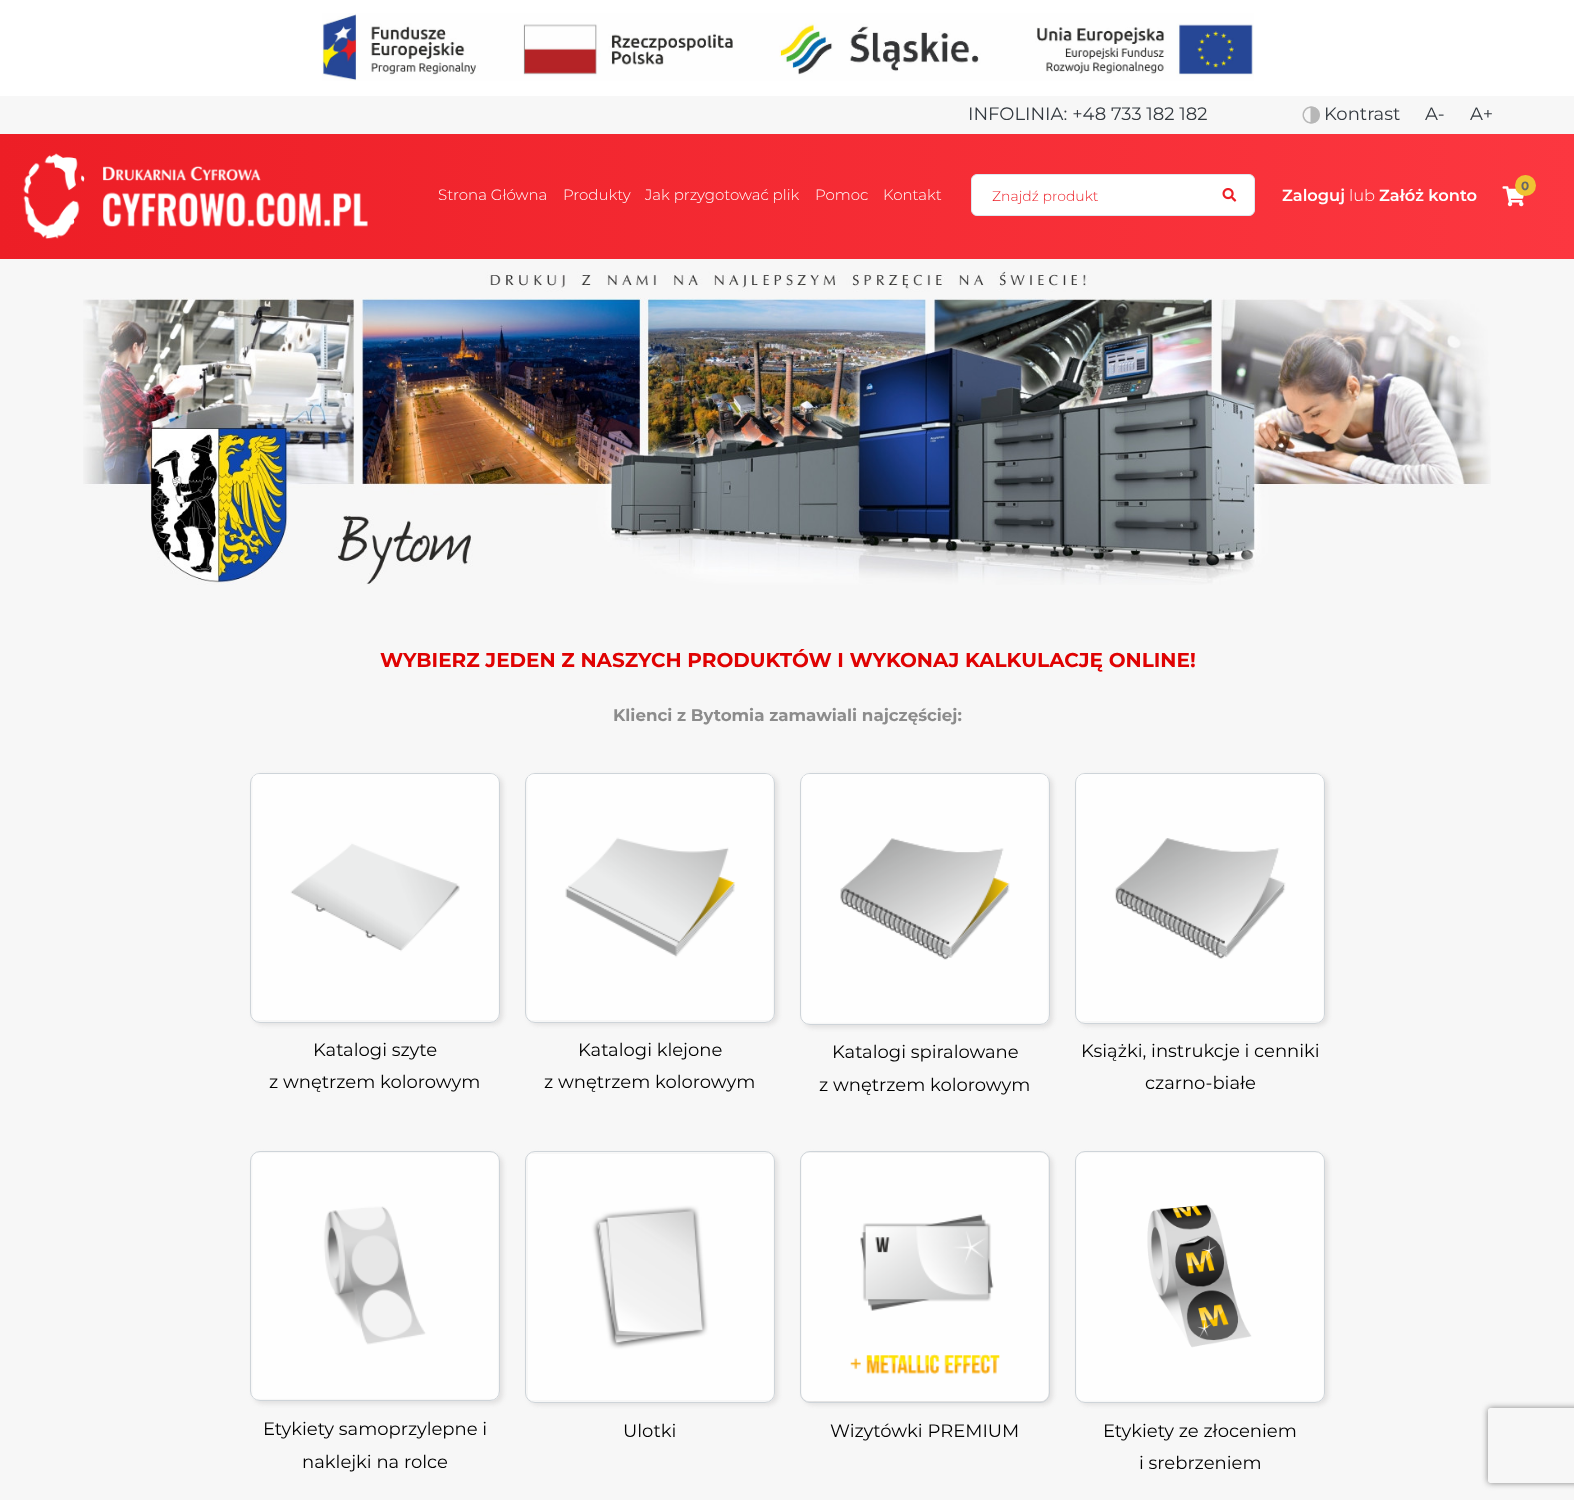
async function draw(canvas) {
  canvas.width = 1574
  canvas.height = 1500
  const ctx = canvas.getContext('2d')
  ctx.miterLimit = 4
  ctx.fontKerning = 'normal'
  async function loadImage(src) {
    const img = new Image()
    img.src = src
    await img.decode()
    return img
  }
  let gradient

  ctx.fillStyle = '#f7f7f7'
  ctx.fillRect(0, 0, 1574, 1500)
  ctx.fillStyle = '#fff'
  ctx.fillRect(0, 0, 1574, 96)
  ctx.drawImage(await loadImage('image0.png'), 322, 13, 932, 68)
  ctx.font = '18px Montserrat'
  ctx.fillStyle = '#343a40'
  ctx.fillText('INFOLINIA: +48 733 182 182', 968, 120)
  ctx.drawImage(await loadImage('image1.png'), 1302, 106, 18, 18)
  ctx.fillText('Kontrast', 1324, 120)
  ctx.fillText('A-', 1425, 120)
  ctx.fillText('A+', 1470, 120)
  gradient = ctx.createLinearGradient(0, 196, 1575, 196)
  gradient.addColorStop(0, '#ed1e26')
  gradient.addColorStop(1, '#fc3740')
  ctx.fillStyle = gradient
  ctx.fillRect(0, 134, 1574, 125)
  ctx.drawImage(await loadImage('image2.png'), 23, 153, 345, 86)
  ctx.drawImage(await loadImage('image3.png'), 1502, 186, 22, 21)
  ctx.fillStyle = '#efc233'
  ctx.beginPath()
  ctx.arc(1525.5, 185.5, 10.5, 0, 2 * Math.PI)
  ctx.fill()
  ctx.font = 'bold 12px Montserrat'
  ctx.fillStyle = '#676767'
  ctx.fillText('0', 1521, 190)
  ctx.font = '300 15px Montserrat'
  ctx.fillStyle = '#fff'
  ctx.fillText('Strona Główna', 438, 200)
  ctx.fillText('Produkty', 563, 200)
  ctx.fillText('Jak przygotować plik', 645, 200)
  ctx.fillText('Pomoc', 815, 200)
  ctx.fillText('Kontakt', 883, 200)
  ctx.beginPath()
  ctx.roundRect(971.5, 174.5, 283, 41, 5.5)
  ctx.fill()
  ctx.strokeStyle = '#dde7f0'
  ctx.stroke()
  ctx.font = '300 14px Montserrat'
  ctx.fillStyle = '#ed1e26'
  ctx.fillText('Znajdź produkt', 992, 201)
  ctx.drawImage(await loadImage('image4.png'), 1222, 188, 15, 14)
  ctx.font = '600 16.25px Montserrat'
  ctx.fillStyle = '#fff'
  ctx.fillText('Zaloguj', 1282, 201)
  ctx.font = '300 16.25px Montserrat'
  ctx.fillText('lub', 1349, 201)
  ctx.font = '600 16.25px Montserrat'
  ctx.fillText('Załóż konto', 1379, 201)
  ctx.drawImage(await loadImage('image5.png'), 83, 271, 1408, 314)
  ctx.font = 'bold 20px Montserrat'
  ctx.fillStyle = '#e00202'
  ctx.fillText('WYBIERZ JEDEN Z NASZYCH PRODUKTÓW I WYKONAJ KALKULACJĘ ONLINE!', 380, 667)
  ctx.font = 'bold 16.7px Montserrat'
  ctx.fillStyle = '#8c8c8c'
  ctx.fillText('Klienci z Bytomia zamawiali najczęściej:', 613, 721)
  ctx.save()
  ctx.beginPath()
  ctx.moveTo(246, 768)
  ctx.lineTo(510, 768)
  ctx.lineTo(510, 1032)
  ctx.lineTo(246, 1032)
  ctx.closePath()
  ctx.moveTo(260, 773)
  ctx.lineTo(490, 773)
  ctx.bezierCurveTo(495.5, 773, 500, 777.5, 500, 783)
  ctx.lineTo(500, 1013)
  ctx.bezierCurveTo(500, 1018.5, 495.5, 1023, 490, 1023)
  ctx.lineTo(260, 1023)
  ctx.bezierCurveTo(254.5, 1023, 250, 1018.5, 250, 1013)
  ctx.lineTo(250, 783)
  ctx.bezierCurveTo(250, 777.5, 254.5, 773, 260, 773)
  ctx.closePath()
  ctx.clip('evenodd')
  ctx.fillStyle = '#e2e1e1'
  ctx.filter = 'blur(2px)'
  ctx.beginPath()
  ctx.roundRect(253, 775, 250, 250, 10)
  ctx.fill()
  ctx.filter = 'none'
  ctx.restore()
  ctx.beginPath()
  ctx.roundRect(250.5, 773.5, 249, 249, 9.5)
  ctx.strokeStyle = '#ced4d9'
  ctx.stroke()
  ctx.drawImage(await loadImage('image6.png'), 252, 774, 247, 246)
  ctx.font = '18px Montserrat'
  ctx.fillStyle = '#000'
  ctx.fillText('Katalogi szyte', 313, 1056)
  ctx.fillText('z wnętrzem kolorowym', 269, 1088)
  ctx.save()
  ctx.beginPath()
  ctx.moveTo(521, 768)
  ctx.lineTo(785, 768)
  ctx.lineTo(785, 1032)
  ctx.lineTo(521, 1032)
  ctx.closePath()
  ctx.moveTo(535, 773)
  ctx.lineTo(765, 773)
  ctx.bezierCurveTo(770.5, 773, 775, 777.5, 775, 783)
  ctx.lineTo(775, 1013)
  ctx.bezierCurveTo(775, 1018.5, 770.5, 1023, 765, 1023)
  ctx.lineTo(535, 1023)
  ctx.bezierCurveTo(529.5, 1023, 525, 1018.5, 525, 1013)
  ctx.lineTo(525, 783)
  ctx.bezierCurveTo(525, 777.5, 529.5, 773, 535, 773)
  ctx.closePath()
  ctx.clip('evenodd')
  ctx.fillStyle = '#e2e1e1'
  ctx.filter = 'blur(2px)'
  ctx.beginPath()
  ctx.roundRect(528, 775, 250, 250, 10)
  ctx.fill()
  ctx.filter = 'none'
  ctx.restore()
  ctx.beginPath()
  ctx.roundRect(525.5, 773.5, 249, 249, 9.5)
  ctx.stroke()
  ctx.drawImage(await loadImage('image7.png'), 527, 774, 246, 246)
  ctx.fillText('Katalogi klejone', 578, 1056)
  ctx.fillText('z wnętrzem kolorowym', 544, 1088)
  ctx.save()
  ctx.beginPath()
  ctx.moveTo(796, 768)
  ctx.lineTo(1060, 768)
  ctx.lineTo(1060, 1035)
  ctx.lineTo(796, 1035)
  ctx.closePath()
  ctx.moveTo(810, 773)
  ctx.lineTo(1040, 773)
  ctx.bezierCurveTo(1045.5, 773, 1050, 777.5, 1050, 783)
  ctx.lineTo(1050, 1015)
  ctx.bezierCurveTo(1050, 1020.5, 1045.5, 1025, 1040, 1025)
  ctx.lineTo(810, 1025)
  ctx.bezierCurveTo(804.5, 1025, 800, 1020.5, 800, 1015)
  ctx.lineTo(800, 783)
  ctx.bezierCurveTo(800, 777.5, 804.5, 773, 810, 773)
  ctx.closePath()
  ctx.clip('evenodd')
  ctx.fillStyle = '#e2e1e1'
  ctx.filter = 'blur(2px)'
  ctx.beginPath()
  ctx.roundRect(803, 775, 250, 253, 10)
  ctx.fill()
  ctx.filter = 'none'
  ctx.restore()
  ctx.beginPath()
  ctx.roundRect(800.5, 773.5, 249, 251, 9.5)
  ctx.stroke()
  ctx.drawImage(await loadImage('image8.png'), 801, 774, 247, 249)
  ctx.fillText('Katalogi spiralowane', 832, 1058)
  ctx.fillText('z wnętrzem kolorowym', 819, 1091)
  ctx.save()
  ctx.beginPath()
  ctx.moveTo(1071, 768)
  ctx.lineTo(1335, 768)
  ctx.lineTo(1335, 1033)
  ctx.lineTo(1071, 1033)
  ctx.closePath()
  ctx.moveTo(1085, 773)
  ctx.lineTo(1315, 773)
  ctx.bezierCurveTo(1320.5, 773, 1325, 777.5, 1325, 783)
  ctx.lineTo(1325, 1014)
  ctx.bezierCurveTo(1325, 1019.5, 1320.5, 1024, 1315, 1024)
  ctx.lineTo(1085, 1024)
  ctx.bezierCurveTo(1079.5, 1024, 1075, 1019.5, 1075, 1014)
  ctx.lineTo(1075, 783)
  ctx.bezierCurveTo(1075, 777.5, 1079.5, 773, 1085, 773)
  ctx.closePath()
  ctx.clip('evenodd')
  ctx.fillStyle = '#e2e1e1'
  ctx.filter = 'blur(2px)'
  ctx.beginPath()
  ctx.roundRect(1078, 775, 250, 251, 10)
  ctx.fill()
  ctx.filter = 'none'
  ctx.restore()
  ctx.beginPath()
  ctx.roundRect(1075.5, 773.5, 249, 250, 9.5)
  ctx.stroke()
  ctx.drawImage(await loadImage('image9.png'), 1076, 774, 248, 247)
  ctx.fillText('Książki, instrukcje i cenniki', 1081, 1057)
  ctx.fillText('czarno-białe', 1145, 1089)
  ctx.save()
  ctx.beginPath()
  ctx.moveTo(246, 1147)
  ctx.lineTo(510, 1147)
  ctx.lineTo(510, 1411)
  ctx.lineTo(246, 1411)
  ctx.closePath()
  ctx.moveTo(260, 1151)
  ctx.lineTo(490, 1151)
  ctx.bezierCurveTo(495.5, 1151, 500, 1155.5, 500, 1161)
  ctx.lineTo(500, 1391)
  ctx.bezierCurveTo(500, 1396.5, 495.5, 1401, 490, 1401)
  ctx.lineTo(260, 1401)
  ctx.bezierCurveTo(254.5, 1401, 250, 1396.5, 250, 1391)
  ctx.lineTo(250, 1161)
  ctx.bezierCurveTo(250, 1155.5, 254.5, 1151, 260, 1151)
  ctx.closePath()
  ctx.clip('evenodd')
  ctx.fillStyle = '#e2e1e1'
  ctx.filter = 'blur(2px)'
  ctx.beginPath()
  ctx.roundRect(253, 1154, 250, 250, 10)
  ctx.fill()
  ctx.filter = 'none'
  ctx.restore()
  ctx.beginPath()
  ctx.roundRect(250.5, 1151.5, 249, 249, 9.5)
  ctx.stroke()
  ctx.drawImage(await loadImage('image10.png'), 252, 1153, 246, 246)
  ctx.fillText('Etykiety samoprzylepne i', 263, 1435)
  ctx.fillText('naklejki na rolce', 302, 1468)
  ctx.save()
  ctx.beginPath()
  ctx.moveTo(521, 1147)
  ctx.lineTo(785, 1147)
  ctx.lineTo(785, 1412)
  ctx.lineTo(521, 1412)
  ctx.closePath()
  ctx.moveTo(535, 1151)
  ctx.lineTo(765, 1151)
  ctx.bezierCurveTo(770.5, 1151, 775, 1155.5, 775, 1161)
  ctx.lineTo(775, 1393)
  ctx.bezierCurveTo(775, 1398.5, 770.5, 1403, 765, 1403)
  ctx.lineTo(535, 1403)
  ctx.bezierCurveTo(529.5, 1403, 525, 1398.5, 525, 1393)
  ctx.lineTo(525, 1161)
  ctx.bezierCurveTo(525, 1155.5, 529.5, 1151, 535, 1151)
  ctx.closePath()
  ctx.clip('evenodd')
  ctx.fillStyle = '#e2e1e1'
  ctx.filter = 'blur(2px)'
  ctx.beginPath()
  ctx.roundRect(528, 1154, 250, 251, 10)
  ctx.fill()
  ctx.filter = 'none'
  ctx.restore()
  ctx.beginPath()
  ctx.roundRect(525.5, 1151.5, 249, 251, 9.5)
  ctx.stroke()
  ctx.drawImage(await loadImage('image11.png'), 528, 1154, 246, 246)
  ctx.fillText('Ulotki', 623, 1437)
  ctx.fillStyle = '#e2e1e1'
  ctx.filter = 'blur(2px)'
  ctx.beginPath()
  ctx.roundRect(803, 1154, 250, 251, 10)
  ctx.fill()
  ctx.filter = 'none'
  ctx.beginPath()
  ctx.roundRect(800.5, 1151.5, 249, 251, 9.5)
  ctx.stroke()
  ctx.drawImage(await loadImage('image12.png'), 801, 1153, 248, 248)
  ctx.fillStyle = '#000'
  ctx.fillText('Wizytówki PREMIUM', 830, 1437)
  ctx.save()
  ctx.beginPath()
  ctx.moveTo(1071, 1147)
  ctx.lineTo(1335, 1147)
  ctx.lineTo(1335, 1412)
  ctx.lineTo(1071, 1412)
  ctx.closePath()
  ctx.moveTo(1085, 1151)
  ctx.lineTo(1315, 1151)
  ctx.bezierCurveTo(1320.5, 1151, 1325, 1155.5, 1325, 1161)
  ctx.lineTo(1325, 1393)
  ctx.bezierCurveTo(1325, 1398.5, 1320.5, 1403, 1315, 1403)
  ctx.lineTo(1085, 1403)
  ctx.bezierCurveTo(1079.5, 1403, 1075, 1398.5, 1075, 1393)
  ctx.lineTo(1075, 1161)
  ctx.bezierCurveTo(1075, 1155.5, 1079.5, 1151, 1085, 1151)
  ctx.closePath()
  ctx.clip('evenodd')
  ctx.fillStyle = '#e2e1e1'
  ctx.filter = 'blur(2px)'
  ctx.beginPath()
  ctx.roundRect(1078, 1154, 250, 251, 10)
  ctx.fill()
  ctx.filter = 'none'
  ctx.restore()
  ctx.beginPath()
  ctx.roundRect(1075.5, 1151.5, 249, 251, 9.5)
  ctx.stroke()
  ctx.drawImage(await loadImage('image13.png'), 1076, 1153, 248, 248)
  ctx.fillText('Etykiety ze złoceniem', 1103, 1437)
  ctx.fillText('i srebrzeniem', 1139, 1469)
  ctx.save()
  ctx.beginPath()
  ctx.moveTo(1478, 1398)
  ctx.lineTo(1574, 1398)
  ctx.lineTo(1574, 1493)
  ctx.lineTo(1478, 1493)
  ctx.closePath()
  ctx.moveTo(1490.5, 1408)
  ctx.lineTo(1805.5, 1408)
  ctx.bezierCurveTo(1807, 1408, 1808, 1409, 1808, 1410.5)
  ctx.lineTo(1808, 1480.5)
  ctx.bezierCurveTo(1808, 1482, 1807, 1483, 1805.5, 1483)
  ctx.lineTo(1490.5, 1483)
  ctx.bezierCurveTo(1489, 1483, 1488, 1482, 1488, 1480.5)
  ctx.lineTo(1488, 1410.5)
  ctx.bezierCurveTo(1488, 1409, 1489, 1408, 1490.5, 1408)
  ctx.closePath()
  ctx.clip('evenodd')
  ctx.fillStyle = '#808080'
  ctx.filter = 'blur(3px)'
  ctx.beginPath()
  ctx.roundRect(1488, 1408, 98, 75, 2.5)
  ctx.fill()
  ctx.filter = 'none'
  ctx.restore()
}

draw(document.querySelector('canvas'))
